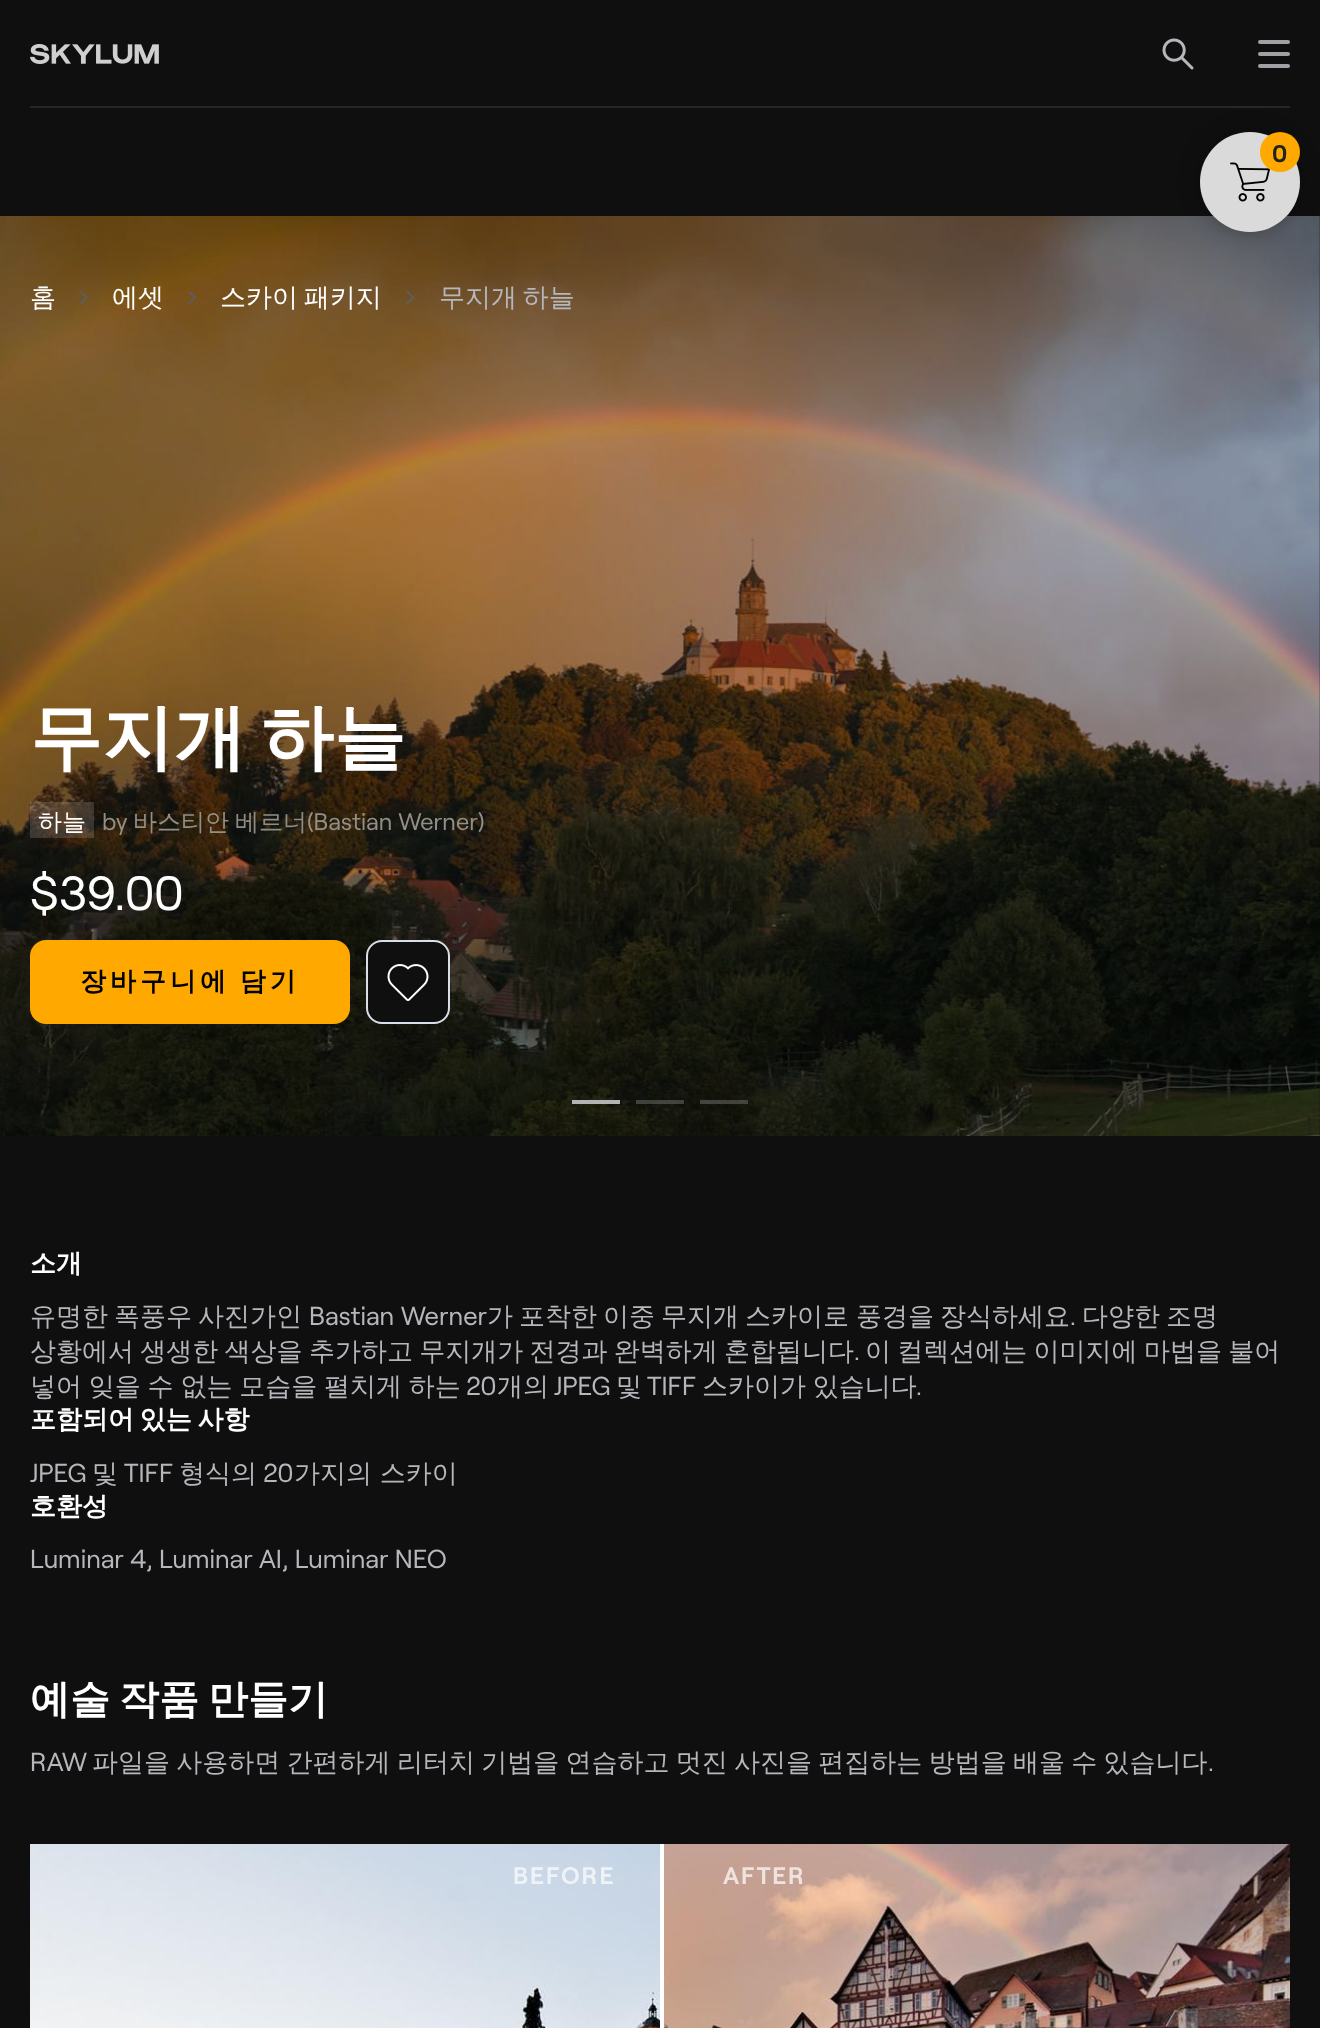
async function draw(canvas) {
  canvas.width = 1320
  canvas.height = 2028
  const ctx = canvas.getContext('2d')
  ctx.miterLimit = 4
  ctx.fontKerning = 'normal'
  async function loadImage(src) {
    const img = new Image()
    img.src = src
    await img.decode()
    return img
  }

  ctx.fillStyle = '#0f0f0f'
  ctx.fillRect(0, 0, 1320, 2028)
  ctx.drawImage(await loadImage('image3.png'), 0, 216, 1320, 920)
  ctx.fillStyle = '#00000066'
  ctx.filter = 'blur(12px)'
  ctx.beginPath()
  ctx.roundRect(1204, 136, 92, 92, 46)
  ctx.fill()
  ctx.filter = 'none'
  ctx.fillStyle = '#272727'
  ctx.fillRect(30, 106, 1260, 2)
  ctx.drawImage(await loadImage('image0.png'), 30, 44, 129, 20)
  ctx.drawImage(await loadImage('image1.png'), 1162, 38, 32, 32)
  ctx.fillStyle = '#9fa1a7'
  ctx.beginPath()
  ctx.roundRect(1258, 40, 32, 4, 2)
  ctx.fill()
  ctx.beginPath()
  ctx.roundRect(1258, 52, 32, 4, 2)
  ctx.fill()
  ctx.beginPath()
  ctx.roundRect(1258, 64, 32, 4, 2)
  ctx.fill()
  ctx.fillStyle = '#dadada'
  ctx.beginPath()
  ctx.arc(1250, 182, 50, 0, 2 * Math.PI)
  ctx.fill()
  ctx.drawImage(await loadImage('image2.png'), 1230, 162, 40, 40)
  ctx.fillStyle = '#ffa800'
  ctx.beginPath()
  ctx.arc(1280, 152, 20, 0, 2 * Math.PI)
  ctx.fill()
  ctx.font = '600 24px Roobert'
  ctx.fillStyle = '#222'
  ctx.fillText('0', 1272, 162)
  ctx.font = '500 26px WenQuanYi Zen Hei'
  ctx.fillStyle = '#fff'
  ctx.fillText('홈', 30, 306)
  ctx.fillStyle = '#5e5e5e'
  ctx.beginPath()
  ctx.moveTo(88, 297.5)
  ctx.lineTo(81, 304.5)
  ctx.lineTo(79.5, 303)
  ctx.lineTo(86.5, 296)
  ctx.closePath()
  ctx.fill()
  ctx.beginPath()
  ctx.moveTo(88, 297.5)
  ctx.lineTo(86.5, 299)
  ctx.lineTo(79.5, 292)
  ctx.lineTo(81, 290.5)
  ctx.closePath()
  ctx.fill()
  ctx.fillStyle = '#fff'
  ctx.fillText('에셋', 112, 306)
  ctx.fillStyle = '#5e5e5e'
  ctx.beginPath()
  ctx.moveTo(196.5, 297.5)
  ctx.lineTo(189, 304.5)
  ctx.lineTo(188, 303)
  ctx.lineTo(195, 296)
  ctx.closePath()
  ctx.fill()
  ctx.beginPath()
  ctx.moveTo(196.5, 297.5)
  ctx.lineTo(195, 299)
  ctx.lineTo(188, 292)
  ctx.lineTo(189, 290.5)
  ctx.closePath()
  ctx.fill()
  ctx.wordSpacing = '-2px'
  ctx.fillStyle = '#fff'
  ctx.fillText('스카이 패키지', 220, 306)
  ctx.fillStyle = '#5e5e5e'
  ctx.beginPath()
  ctx.moveTo(414.5, 297.5)
  ctx.lineTo(407.5, 304.5)
  ctx.lineTo(406, 303)
  ctx.lineTo(413.5, 296)
  ctx.closePath()
  ctx.fill()
  ctx.beginPath()
  ctx.moveTo(414.5, 297.5)
  ctx.lineTo(413.5, 299)
  ctx.lineTo(406, 292)
  ctx.lineTo(407.5, 290.5)
  ctx.closePath()
  ctx.fill()
  ctx.fillStyle = '#b6b6bc'
  ctx.fillText('무지개 하늘', 439, 306)
  ctx.fillStyle = '#b3b3b3'
  ctx.fillRect(572, 1100, 48, 4)
  ctx.fillStyle = '#b3b3b34d'
  ctx.fillRect(636, 1100, 48, 4)
  ctx.fillRect(700, 1100, 48, 4)
  ctx.wordSpacing = '-6px'
  ctx.font = 'bold 72px WenQuanYi Zen Hei'
  ctx.fillStyle = '#fff'
  ctx.fillText('무지개 하늘', 30, 762)
  ctx.fillStyle = '#ffffff26'
  ctx.fillRect(30, 802, 64, 36)
  ctx.wordSpacing = '0px'
  ctx.font = '500 24px WenQuanYi Zen Hei'
  ctx.fillStyle = '#fff'
  ctx.fillText('하늘', 38, 830)
  ctx.font = '24px Roobert'
  ctx.fillStyle = '#938e86'
  ctx.fillText('by', 102, 830)
  ctx.font = '500 24px WenQuanYi Zen Hei'
  ctx.fillText('바스티안', 133, 830)
  ctx.fillStyle = '#8d8c87'
  ctx.fillText('베르너', 235, 830)
  ctx.font = '24px Roobert'
  ctx.fillStyle = '#938e86'
  ctx.fillText('(Bastian Werner)', 307, 830)
  ctx.font = '48px Roobert'
  ctx.fillStyle = '#fff'
  ctx.fillText('$39.00', 30, 910)
  ctx.fillStyle = '#ffa800'
  ctx.beginPath()
  ctx.roundRect(30, 940, 320, 84, 16)
  ctx.fill()
  ctx.letterSpacing = '4px'
  ctx.wordSpacing = '-2px'
  ctx.font = 'bold 26px WenQuanYi Zen Hei'
  ctx.fillStyle = '#000'
  ctx.fillText('장바구니에 담기', 80, 990)
  ctx.fillStyle = '#0f0f0f'
  ctx.beginPath()
  ctx.roundRect(367, 941, 82, 82, 15)
  ctx.fill()
  ctx.strokeStyle = '#d8dfe6'
  ctx.lineWidth = 2
  ctx.stroke()
  ctx.drawImage(await loadImage('image4.png'), 387, 964, 42, 37)
  ctx.letterSpacing = '0px'
  ctx.wordSpacing = '0px'
  ctx.fillStyle = '#fff'
  ctx.fillText('소개', 30, 1272)
  ctx.font = '500 26px WenQuanYi Zen Hei'
  ctx.fillStyle = '#b6b6bc'
  ctx.fillText('유명한', 30, 1325)
  ctx.fillText('폭풍우', 114, 1325)
  ctx.fillText('사진가인', 198, 1325)
  ctx.font = '26px Roobert'
  ctx.fillText('Bastian Werner', 309, 1325)
  ctx.font = '500 26px WenQuanYi Zen Hei'
  ctx.fillText('가', 487, 1325)
  ctx.fillText('포착한', 519, 1325)
  ctx.fillText('이중', 603, 1325)
  ctx.fillText('무지개', 661, 1325)
  ctx.fillText('스카이로', 745, 1325)
  ctx.fillText('풍경을', 856, 1325)
  ctx.fillText('장식하세요', 940, 1325)
  ctx.font = '26px Roobert'
  ctx.fillText('.', 1070, 1325)
  ctx.font = '500 26px WenQuanYi Zen Hei'
  ctx.fillText('다양한', 1082, 1325)
  ctx.fillText('조명', 1166, 1325)
  ctx.wordSpacing = '-1.5px'
  ctx.fillText('상황에서 생생한 색상을 추가하고 무지개가 전경과 완벽하게 혼합됩니다', 30, 1360)
  ctx.wordSpacing = '0px'
  ctx.font = '26px Roobert'
  ctx.fillText('.', 854, 1360)
  ctx.wordSpacing = '-1.5px'
  ctx.font = '500 26px WenQuanYi Zen Hei'
  ctx.fillText('이 컬렉션에는 이미지에 마법을 불어', 865, 1360)
  ctx.wordSpacing = '-1px'
  ctx.fillText('넣어 잊을 수 없는 모습을 펼치게 하는', 30, 1395)
  ctx.wordSpacing = '0px'
  ctx.font = '26px Roobert'
  ctx.fillText('20', 466, 1395)
  ctx.font = '500 26px WenQuanYi Zen Hei'
  ctx.fillText('개의', 497, 1395)
  ctx.font = '26px Roobert'
  ctx.fillText('JPEG', 554, 1395)
  ctx.font = '500 26px WenQuanYi Zen Hei'
  ctx.fillText('및', 616, 1395)
  ctx.font = '26px Roobert'
  ctx.fillText('TIFF', 647, 1395)
  ctx.wordSpacing = '-1px'
  ctx.font = '500 26px WenQuanYi Zen Hei'
  ctx.fillText('스카이가 있습니다', 702, 1395)
  ctx.wordSpacing = '0px'
  ctx.font = '26px Roobert'
  ctx.fillText('.', 916, 1395)
  ctx.wordSpacing = '-2px'
  ctx.font = 'bold 26px WenQuanYi Zen Hei'
  ctx.fillStyle = '#fff'
  ctx.fillText('포함되어 있는 사항', 30, 1428)
  ctx.wordSpacing = '0px'
  ctx.font = '26px Roobert'
  ctx.fillStyle = '#b6b6bc'
  ctx.fillText('JPEG', 30, 1482)
  ctx.font = '500 26px WenQuanYi Zen Hei'
  ctx.fillText('및', 92, 1482)
  ctx.font = '26px Roobert'
  ctx.fillText('TIFF', 124, 1482)
  ctx.font = '500 26px WenQuanYi Zen Hei'
  ctx.fillText('형식의', 179, 1482)
  ctx.font = '26px Roobert'
  ctx.fillText('20', 263, 1482)
  ctx.font = '500 26px WenQuanYi Zen Hei'
  ctx.fillText('가지의 스카이', 294, 1482)
  ctx.font = 'bold 26px WenQuanYi Zen Hei'
  ctx.fillStyle = '#fff'
  ctx.fillText('호환성', 30, 1515)
  ctx.font = '26px Roobert'
  ctx.fillStyle = '#b6b6bc'
  ctx.fillText('Luminar 4, Luminar AI, Luminar NEO', 30, 1568)
  ctx.wordSpacing = '-3px'
  ctx.font = 'bold 40px WenQuanYi Zen Hei'
  ctx.fillStyle = '#fff'
  ctx.fillText('예술 작품 만들기', 30, 1713)
  ctx.wordSpacing = '0px'
  ctx.font = '26px Roobert'
  ctx.fillStyle = '#b6b6bc'
  ctx.fillText('RAW', 30, 1771)
  ctx.wordSpacing = '-1.5px'
  ctx.font = '500 26px WenQuanYi Zen Hei'
  ctx.fillText('파일을 사용하면 간편하게 리터치 기법을 연습하고 멋진 사진을 편집하는 방법을 배울 수 있습니다', 92, 1771)
  ctx.wordSpacing = '0px'
  ctx.font = '26px Roobert'
  ctx.fillText('.', 1208, 1771)
  ctx.drawImage(await loadImage('image5.png'), 30, 1844, 630, 184)
  ctx.letterSpacing = '2px'
  ctx.font = '600 24px Roobert'
  ctx.fillStyle = '#eff3f8'
  ctx.fillText('BEFORE', 513, 1884)
  ctx.fillStyle = '#fff'
  ctx.fillRect(660, 1844, 4, 184)
  ctx.drawImage(await loadImage('image6.png'), 664, 1844, 626, 184)
  ctx.fillStyle = '#eee3df'
  ctx.fillText('AFTER', 723, 1884)
}

draw(document.querySelector('canvas'))
